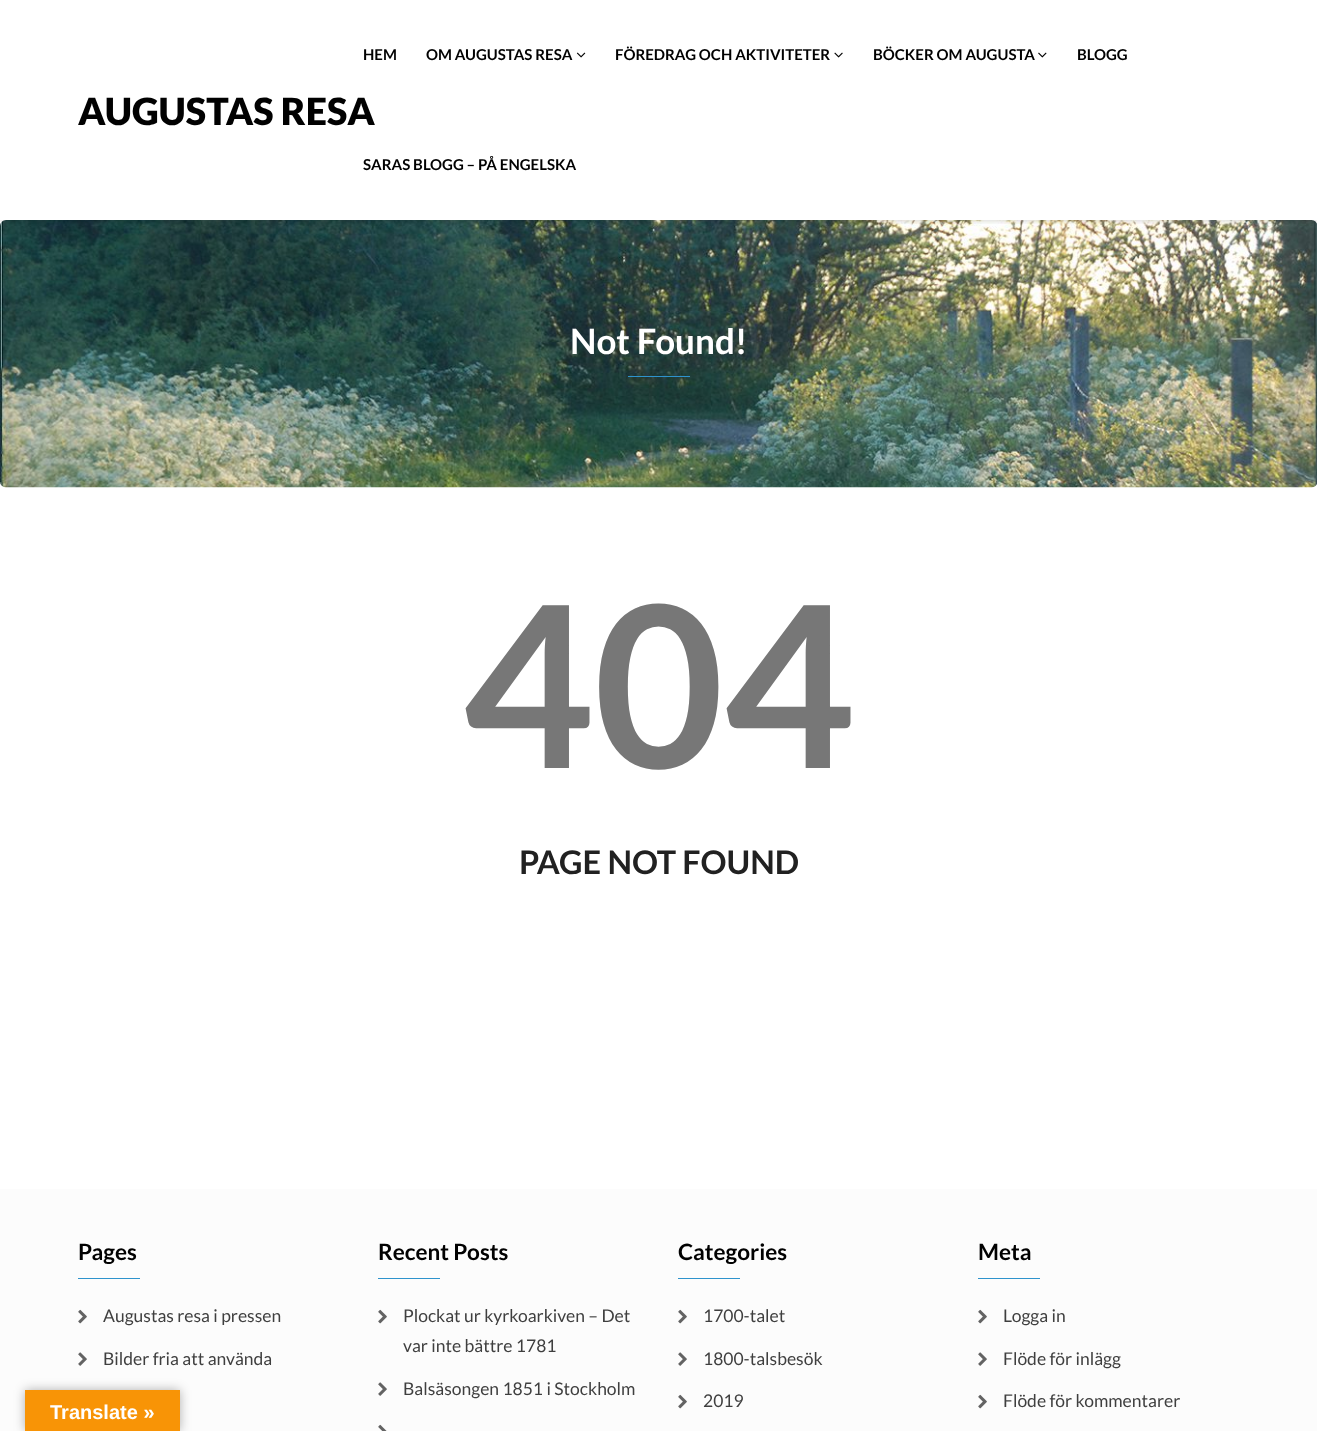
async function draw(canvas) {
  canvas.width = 1317
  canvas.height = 1431
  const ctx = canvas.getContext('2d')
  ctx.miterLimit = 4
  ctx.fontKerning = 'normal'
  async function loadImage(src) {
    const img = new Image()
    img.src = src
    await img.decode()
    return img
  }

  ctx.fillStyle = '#fff'
  ctx.fillRect(0, 0, 1317, 1431)
  ctx.drawImage(await loadImage('image3.png'), 0, 220, 1317, 268)
  ctx.save()
  ctx.beginPath()
  ctx.rect(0, 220, 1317, 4)
  ctx.clip()
  ctx.fillStyle = '#00000033'
  ctx.filter = 'blur(3px)'
  ctx.beginPath()
  ctx.rect(0, 0, 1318, 220)
  ctx.fill()
  ctx.filter = 'none'
  ctx.restore()
  ctx.font = '900 37.5px Lato'
  ctx.fillStyle = '#010101'
  ctx.fillText('AUGUSTAS RESA', 78, 125)
  ctx.font = 'bold 15px Lato'
  ctx.fillText('HEM', 363, 60)
  ctx.fillText('OM AUGUSTAS RESA', 426, 60)
  ctx.drawImage(await loadImage('image0.png'), 576, 52, 10, 6)
  ctx.fillText('FÖREDRAG OCH AKTIVITETER', 615, 60)
  ctx.drawImage(await loadImage('image1.png'), 834, 52, 9, 6)
  ctx.fillText('BÖCKER OM AUGUSTA', 873, 60)
  ctx.drawImage(await loadImage('image2.png'), 1038, 52, 9, 6)
  ctx.fillText('BLOGG', 1077, 60)
  ctx.fillText('SARAS BLOGG – PÅ ENGELSKA', 363, 170)
  ctx.font = 'bold 35px Lato'
  ctx.fillStyle = '#fff'
  ctx.fillText('Not Found!', 570, 354)
  ctx.fillStyle = '#2e93cd'
  ctx.fillRect(628, 376, 62, 1)
  ctx.font = 'bold 225px Lato'
  ctx.fillStyle = '#777'
  ctx.fillText('404', 463, 768)
  ctx.font = 'bold 32.5px Lato'
  ctx.fillStyle = '#212121'
  ctx.fillText('PAGE NOT FOUND', 519, 874)
  ctx.fillStyle = '#fcfcfc'
  ctx.fillRect(0, 1189, 1317, 242)
  ctx.font = 'bold 22.5px Lato'
  ctx.fillStyle = '#010101'
  ctx.fillText('Pages', 78, 1260)
  ctx.fillStyle = '#2e93cd'
  ctx.fillRect(78, 1278, 62, 1)
  ctx.drawImage(await loadImage('image4.png'), 78, 1309, 9, 15)
  ctx.font = '17.5px Lato'
  ctx.fillStyle = '#3f3f3f'
  ctx.fillText('Augustas resa i pressen', 103, 1322)
  ctx.drawImage(await loadImage('image5.png'), 78, 1352, 9, 14)
  ctx.fillText('Bilder fria att använda', 103, 1365)
  ctx.font = 'bold 22.5px Lato'
  ctx.fillStyle = '#010101'
  ctx.fillText('Recent Posts', 378, 1260)
  ctx.fillStyle = '#2e93cd'
  ctx.fillRect(378, 1278, 62, 1)
  ctx.drawImage(await loadImage('image4.png'), 378, 1309, 9, 15)
  ctx.font = '17.5px Lato'
  ctx.fillStyle = '#3f3f3f'
  ctx.fillText('Plockat ur kyrkoarkiven – Det', 403, 1322)
  ctx.fillText('var inte bättre 1781', 403, 1352)
  ctx.drawImage(await loadImage('image5.png'), 378, 1382, 9, 14)
  ctx.fillText('Balsäsongen 1851 i Stockholm', 403, 1395)
  ctx.drawImage(await loadImage('image6.png'), 378, 1424, 9, 7)
  ctx.font = 'bold 22.5px Lato'
  ctx.fillStyle = '#010101'
  ctx.fillText('Categories', 678, 1260)
  ctx.fillStyle = '#2e93cd'
  ctx.fillRect(678, 1278, 62, 1)
  ctx.drawImage(await loadImage('image4.png'), 678, 1309, 9, 15)
  ctx.font = '17.5px Lato'
  ctx.fillStyle = '#3f3f3f'
  ctx.fillText('1700-talet', 703, 1322)
  ctx.drawImage(await loadImage('image5.png'), 678, 1352, 9, 14)
  ctx.fillText('1800-talsbesök', 703, 1365)
  ctx.drawImage(await loadImage('image4.png'), 678, 1394, 9, 15)
  ctx.fillText('2019', 703, 1407)
  ctx.font = 'bold 22.5px Lato'
  ctx.fillStyle = '#010101'
  ctx.fillText('Meta', 978, 1260)
  ctx.fillStyle = '#2e93cd'
  ctx.fillRect(978, 1278, 62, 1)
  ctx.drawImage(await loadImage('image4.png'), 978, 1309, 9, 15)
  ctx.font = '17.5px Lato'
  ctx.fillStyle = '#3f3f3f'
  ctx.fillText('Logga in', 1003, 1322)
  ctx.drawImage(await loadImage('image5.png'), 978, 1352, 9, 14)
  ctx.fillText('Flöde för inlägg', 1003, 1365)
  ctx.drawImage(await loadImage('image4.png'), 978, 1394, 9, 15)
  ctx.fillText('Flöde för kommentarer', 1003, 1407)
  ctx.fillStyle = '#0000004d'
  ctx.filter = 'blur(5.5px)'
  ctx.beginPath()
  ctx.rect(25, 1390, 155, 41)
  ctx.fill()
  ctx.filter = 'none'
  ctx.fillStyle = '#f89406'
  ctx.fillRect(25, 1390, 155, 41)
  ctx.font = 'bold 20px Liberation Sans'
  ctx.fillStyle = '#fff'
  ctx.fillText('Translate »', 50, 1419)
}

draw(document.querySelector('canvas'))
